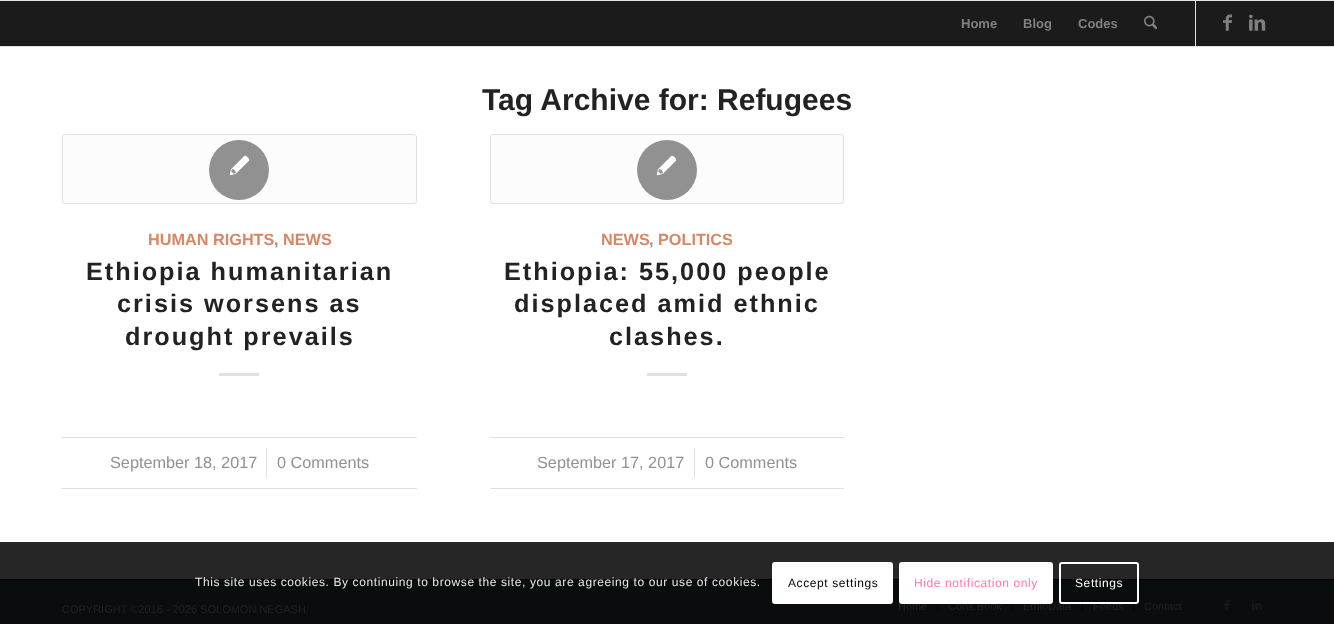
async function draw(canvas) {
  canvas.width = 1334
  canvas.height = 624
  const ctx = canvas.getContext('2d')
  ctx.miterLimit = 4
  ctx.fontKerning = 'normal'
  async function loadImage(src) {
    const img = new Image()
    img.src = src
    await img.decode()
    return img
  }

  ctx.fillStyle = '#fff'
  ctx.fillRect(0, 0, 1334, 624)
  ctx.fillStyle = '#262626'
  ctx.fillRect(0, 542, 1334, 37)
  ctx.fillStyle = '#1b1b1b'
  ctx.fillRect(0, 1, 1334, 45)
  ctx.fillStyle = '#e1e1e1'
  ctx.fillRect(0, 0, 1334, 1)
  ctx.fillRect(0, 46, 1334, 1)
  ctx.fillRect(1195, 1, 1, 45)
  ctx.font = 'bold 13px Liberation Sans'
  ctx.fillStyle = '#808080'
  ctx.fillText('Home', 961, 28)
  ctx.fillText('Blog', 1023, 28)
  ctx.fillText('Codes', 1078, 28)
  ctx.drawImage(await loadImage('image0.png'), 1144, 15, 13, 15)
  ctx.drawImage(await loadImage('image1.png'), 1223, 14, 9, 17)
  ctx.drawImage(await loadImage('image2.png'), 1249, 14, 17, 17)
  ctx.font = 'bold 30px Liberation Sans'
  ctx.fillStyle = '#222'
  ctx.fillText('Tag Archive for: Refugees', 482, 110)
  ctx.fillStyle = '#fcfcfc'
  ctx.beginPath()
  ctx.roundRect(62.5, 134.5, 354, 69, 2.5)
  ctx.fill()
  ctx.strokeStyle = '#e1e1e1'
  ctx.stroke()
  ctx.fillStyle = '#919191'
  ctx.beginPath()
  ctx.arc(239, 170, 30, 0, 2 * Math.PI)
  ctx.fill()
  ctx.drawImage(await loadImage('image3.png'), 229, 155, 21, 21)
  ctx.font = 'bold 16.25px Liberation Sans'
  ctx.fillStyle = '#d68765'
  ctx.fillText('HUMAN RIGHTS', 148, 245)
  ctx.fillStyle = '#919191'
  ctx.fillText(',', 274, 245)
  ctx.fillStyle = '#d68765'
  ctx.fillText('NEWS', 283, 245)
  ctx.letterSpacing = '2px'
  ctx.font = 'bold 25.25px Liberation Sans'
  ctx.fillStyle = '#222'
  ctx.fillText('Ethiopia humanitarian', 86, 280)
  ctx.fillText('crisis worsens as', 117, 312)
  ctx.fillText('drought prevails', 125, 345)
  ctx.fillStyle = '#e1e1e1'
  ctx.fillRect(219, 373, 40, 3)
  ctx.fillRect(62, 437, 355, 1)
  ctx.fillRect(62, 488, 355, 1)
  ctx.letterSpacing = '0px'
  ctx.font = '16.25px Liberation Sans'
  ctx.fillStyle = '#919191'
  ctx.fillText('September 18, 2017', 110, 468)
  ctx.fillStyle = '#e1e1e1'
  ctx.fillRect(266, 448, 1, 30)
  ctx.fillStyle = '#919191'
  ctx.fillText('0 Comments', 277, 468)
  ctx.fillStyle = '#fcfcfc'
  ctx.beginPath()
  ctx.roundRect(490.5, 134.5, 353, 69, 2.5)
  ctx.fill()
  ctx.stroke()
  ctx.fillStyle = '#919191'
  ctx.beginPath()
  ctx.arc(667, 170, 30, 0, 2 * Math.PI)
  ctx.fill()
  ctx.drawImage(await loadImage('image3.png'), 656, 155, 21, 21)
  ctx.font = 'bold 16.25px Liberation Sans'
  ctx.fillStyle = '#d68765'
  ctx.fillText('NEWS', 601, 245)
  ctx.fillStyle = '#919191'
  ctx.fillText(',', 649, 245)
  ctx.fillStyle = '#d68765'
  ctx.fillText('POLITICS', 658, 245)
  ctx.letterSpacing = '2px'
  ctx.font = 'bold 25.25px Liberation Sans'
  ctx.fillStyle = '#222'
  ctx.fillText('Ethiopia: 55,000 people', 504, 280)
  ctx.fillText('displaced amid ethnic', 514, 312)
  ctx.fillText('clashes.', 609, 345)
  ctx.fillStyle = '#e1e1e1'
  ctx.fillRect(647, 373, 40, 3)
  ctx.fillRect(490, 437, 354, 1)
  ctx.fillRect(490, 488, 354, 1)
  ctx.letterSpacing = '0px'
  ctx.font = '16.25px Liberation Sans'
  ctx.fillStyle = '#919191'
  ctx.fillText('September 17, 2017', 537, 468)
  ctx.fillStyle = '#e1e1e1'
  ctx.fillRect(694, 448, 1, 30)
  ctx.fillStyle = '#919191'
  ctx.fillText('0 Comments', 705, 468)
  ctx.fillStyle = '#0a0d0e'
  ctx.fillRect(0, 580, 1334, 44)
  ctx.fillStyle = '#030303'
  ctx.fillRect(0, 579, 1334, 1)
  ctx.font = '11px Liberation Sans'
  ctx.fillStyle = '#222'
  ctx.fillText('COPYRIGHT ©2016 - 2026 SOLOMON NEGASH', 62, 613)
  ctx.fillText('Home', 898, 610)
  ctx.fillStyle = '#030303'
  ctx.fillRect(937, 601, 1, 10)
  ctx.fillStyle = '#222'
  ctx.fillText('Cons.Book', 948, 610)
  ctx.fillStyle = '#030303'
  ctx.fillRect(1012, 601, 1, 10)
  ctx.fillStyle = '#222'
  ctx.fillText('EthioData', 1023, 610)
  ctx.fillStyle = '#030303'
  ctx.fillRect(1082, 601, 1, 10)
  ctx.fillStyle = '#222'
  ctx.fillText('Feeds', 1093, 610)
  ctx.fillStyle = '#030303'
  ctx.fillRect(1133, 601, 1, 10)
  ctx.fillStyle = '#222'
  ctx.fillText('Contact', 1144, 610)
  ctx.drawImage(await loadImage('image4.png'), 1224, 600, 6, 11)
  ctx.drawImage(await loadImage('image5.png'), 1252, 600, 10, 10)
  ctx.letterSpacing = '0.6px'
  ctx.font = '12px Liberation Sans'
  ctx.fillStyle = '#e7e7e7'
  ctx.fillText('This site uses cookies. By continuing to browse the site, you are agreeing to our use of cookies.', 195, 586)
  ctx.fillStyle = '#fff'
  ctx.beginPath()
  ctx.roundRect(772, 562, 121, 42, 3)
  ctx.fill()
  ctx.fillStyle = '#000'
  ctx.fillText('Accept settings', 788, 587)
  ctx.fillStyle = '#fff'
  ctx.beginPath()
  ctx.roundRect(900, 563, 152, 40, 2)
  ctx.fill()
  ctx.strokeStyle = '#fff'
  ctx.lineWidth = 2
  ctx.stroke()
  ctx.fillStyle = '#ff75b5'
  ctx.fillText('Hide notification only', 914, 587)
  ctx.beginPath()
  ctx.roundRect(1060, 563, 78, 40, 2)
  ctx.stroke()
  ctx.fillStyle = '#fff'
  ctx.fillText('Settings', 1075, 587)
}

draw(document.querySelector('canvas'))
